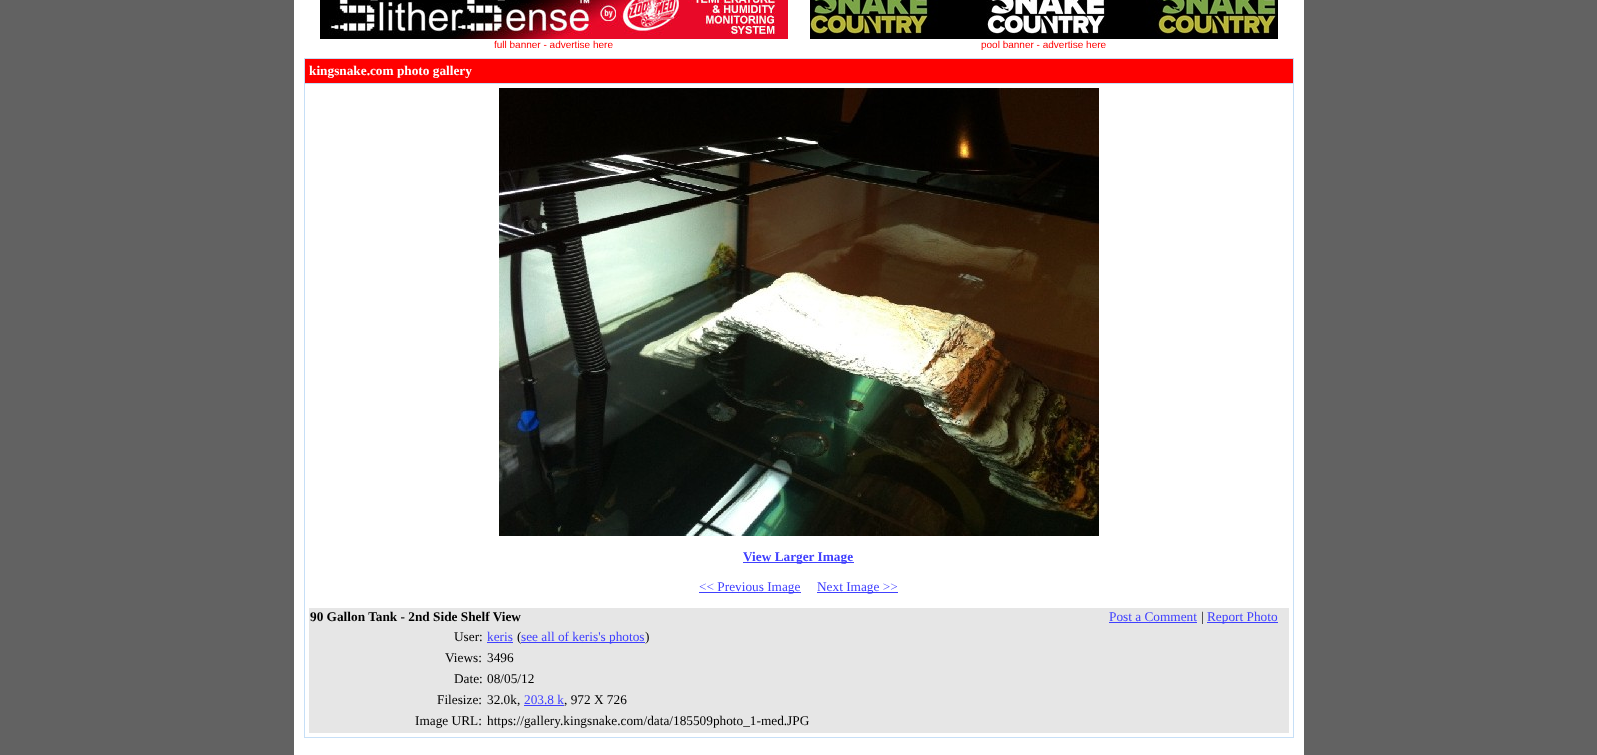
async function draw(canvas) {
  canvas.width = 1597
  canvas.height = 755
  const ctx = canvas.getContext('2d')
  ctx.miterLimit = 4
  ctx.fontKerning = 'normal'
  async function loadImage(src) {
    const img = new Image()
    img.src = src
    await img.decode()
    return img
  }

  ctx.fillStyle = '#626262'
  ctx.fillRect(0, 0, 1597, 755)
  ctx.fillStyle = '#fff'
  ctx.fillRect(294, 0, 1010, 755)
  ctx.drawImage(await loadImage('image0.png'), 320, 0, 468, 39)
  ctx.font = '10px Liberation Sans'
  ctx.fillStyle = '#f00'
  ctx.fillText('full banner - advertise here', 494, 48)
  ctx.drawImage(await loadImage('image1.png'), 810, 0, 468, 39)
  ctx.fillText('pool banner - advertise here', 981, 48)
  ctx.fillStyle = '#c6dff7'
  ctx.fillRect(304, 58, 990, 680)
  ctx.fillStyle = '#f00'
  ctx.fillRect(305, 59, 988, 24)
  ctx.font = 'bold 13.3px Liberation Serif'
  ctx.fillStyle = '#fff'
  ctx.fillText('kingsnake.com photo gallery', 309, 75)
  ctx.fillRect(305, 84, 988, 653)
  ctx.drawImage(await loadImage('image2.png'), 499, 88, 600, 448)
  ctx.fillStyle = '#4040ff'
  ctx.fillRect(743, 562, 111, 1)
  ctx.fillText('View Larger Image', 743, 561)
  ctx.fillRect(699, 592, 102, 1)
  ctx.font = '13.3px Liberation Serif'
  ctx.fillText('<< Previous Image', 699, 591)
  ctx.fillRect(817, 592, 81, 1)
  ctx.fillText('Next Image >>', 817, 591)
  ctx.fillStyle = '#e6e6e6'
  ctx.fillRect(309, 608, 980, 125)
  ctx.font = 'bold 13.3px Liberation Serif'
  ctx.fillStyle = '#000'
  ctx.fillText('90 Gallon Tank - 2nd Side Shelf View', 310, 621)
  ctx.font = '13.3px Liberation Serif'
  ctx.fillStyle = '#4040ff'
  ctx.fillText('Post a Comment', 1109, 621)
  ctx.fillRect(1109, 622, 88, 1)
  ctx.fillStyle = '#000'
  ctx.fillText('|', 1201, 621)
  ctx.fillStyle = '#4040ff'
  ctx.fillRect(1207, 622, 71, 1)
  ctx.fillText('Report Photo', 1207, 621)
  ctx.fillStyle = '#000'
  ctx.fillText('User:', 454, 641)
  ctx.fillStyle = '#4040ff'
  ctx.fillText('keris', 487, 641)
  ctx.fillRect(487, 642, 26, 1)
  ctx.fillStyle = '#000'
  ctx.fillText('(', 517, 641)
  ctx.fillStyle = '#4040ff'
  ctx.fillRect(521, 642, 124, 1)
  ctx.fillText('see all of keris\'s photos', 521, 641)
  ctx.fillStyle = '#000'
  ctx.fillText(')', 645, 641)
  ctx.fillText('Views:', 445, 662)
  ctx.fillText('3496', 487, 662)
  ctx.fillText('Date:', 454, 683)
  ctx.fillText('08/05/12', 487, 683)
  ctx.fillText('Filesize:', 437, 704)
  ctx.fillText('32.0k,', 487, 704)
  ctx.fillStyle = '#4040ff'
  ctx.fillText('203.8 k', 524, 704)
  ctx.fillRect(524, 705, 40, 1)
  ctx.fillStyle = '#000'
  ctx.fillText(', 972 X 726', 564, 704)
  ctx.fillText('Image URL:', 415, 725)
  ctx.fillText('https://gallery.kingsnake.com/data/185509photo_1-med.JPG', 487, 725)
}

draw(document.querySelector('canvas'))
